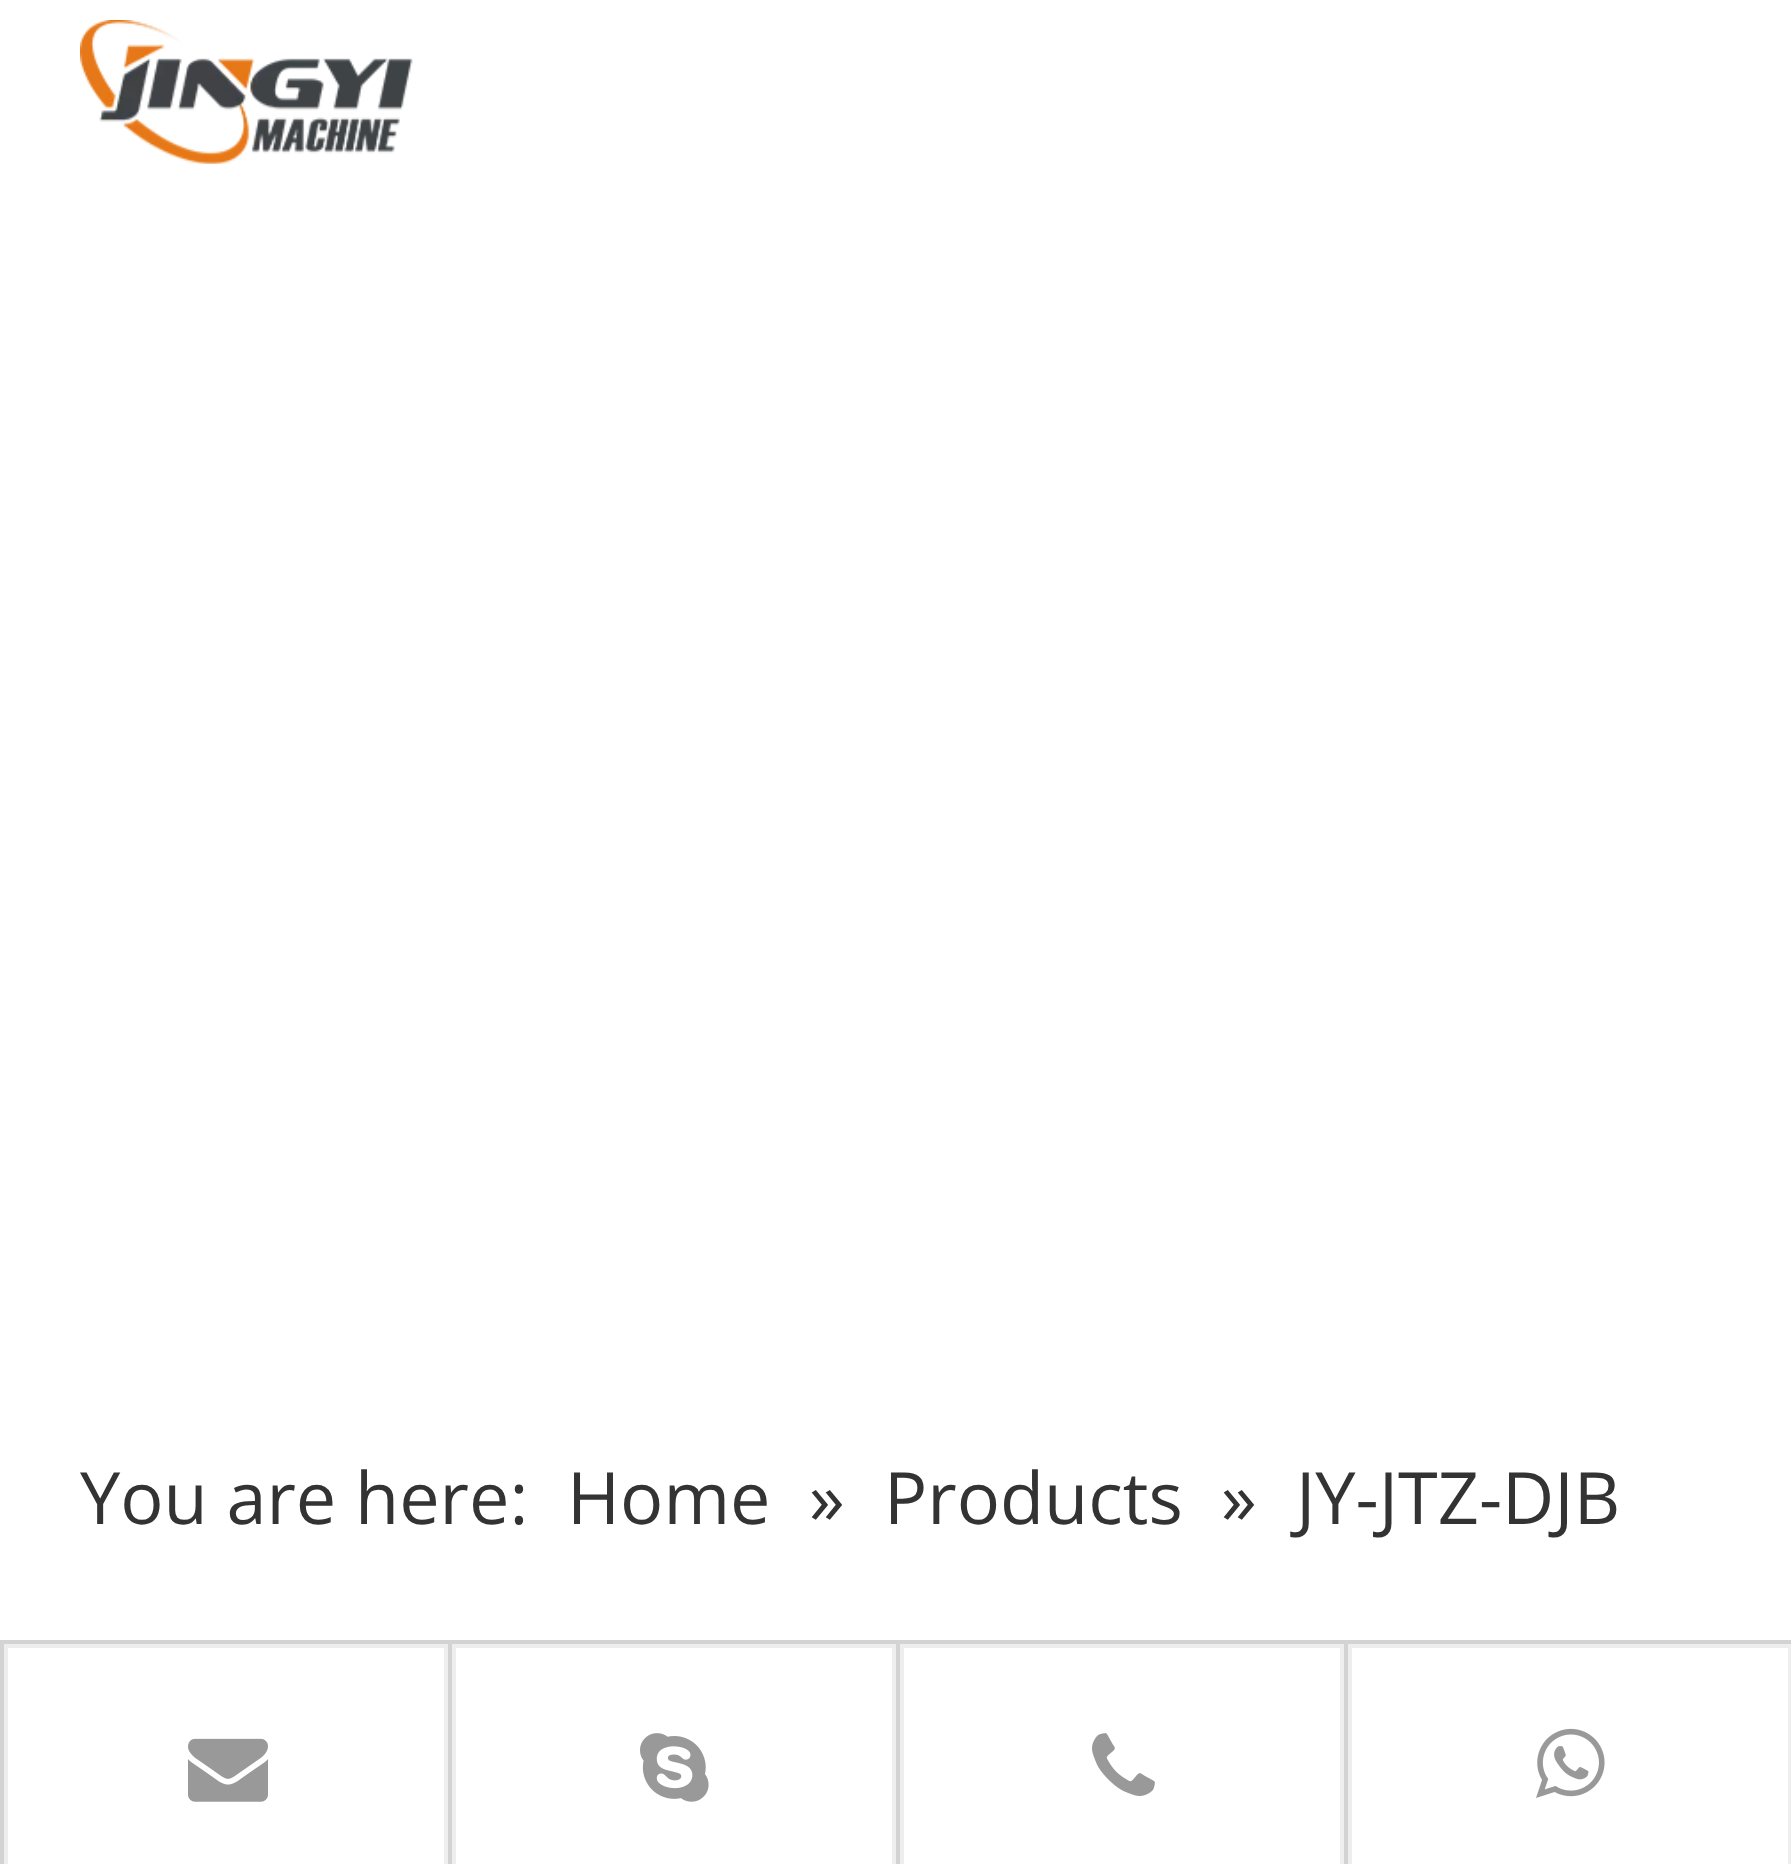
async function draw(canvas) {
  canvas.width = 1791
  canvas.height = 1864
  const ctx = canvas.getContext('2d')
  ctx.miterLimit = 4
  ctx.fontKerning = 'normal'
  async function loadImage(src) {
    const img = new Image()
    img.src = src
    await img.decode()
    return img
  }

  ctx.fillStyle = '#fff'
  ctx.fillRect(0, 0, 1791, 1864)
  ctx.drawImage(await loadImage('image0.png'), 80, 20, 333, 144)
  ctx.font = '72px Open Sans'
  ctx.fillStyle = '#333'
  ctx.fillText('You are here:', 80, 1524)
  ctx.fillText('Home', 567, 1524)
  ctx.fillText('»', 809, 1524)
  ctx.fillText('Products', 884, 1524)
  ctx.fillText('»', 1221, 1524)
  ctx.fillText('JY-JTZ-DJB', 1296, 1524)
  ctx.fillStyle = '#d3d3d3'
  ctx.fillRect(0, 1640, 1791, 4)
  ctx.fillRect(0, 1644, 4, 220)
  ctx.fillStyle = '#eee'
  ctx.fillRect(4, 1644, 444, 4)
  ctx.fillRect(444, 1644, 4, 220)
  ctx.fillRect(4, 1644, 4, 220)
  ctx.drawImage(await loadImage('image1.png'), 188, 1738, 80, 64)
  ctx.fillStyle = '#d3d3d3'
  ctx.fillRect(448, 1644, 4, 220)
  ctx.fillStyle = '#eee'
  ctx.fillRect(452, 1644, 444, 4)
  ctx.fillRect(892, 1644, 4, 220)
  ctx.fillRect(452, 1644, 4, 220)
  ctx.drawImage(await loadImage('image2.png'), 640, 1733, 69, 69)
  ctx.fillStyle = '#d3d3d3'
  ctx.fillRect(896, 1644, 4, 220)
  ctx.fillStyle = '#eee'
  ctx.fillRect(900, 1644, 444, 4)
  ctx.fillRect(1340, 1644, 4, 220)
  ctx.fillRect(900, 1644, 4, 220)
  ctx.drawImage(await loadImage('image3.png'), 1092, 1733, 63, 63)
  ctx.fillStyle = '#d3d3d3'
  ctx.fillRect(1344, 1644, 4, 220)
  ctx.strokeStyle = '#eee'
  ctx.lineWidth = 4
  ctx.strokeRect(1350, 1646, 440, 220)
  ctx.drawImage(await loadImage('image4.png'), 1536, 1728, 69, 70)
}

draw(document.querySelector('canvas'))
